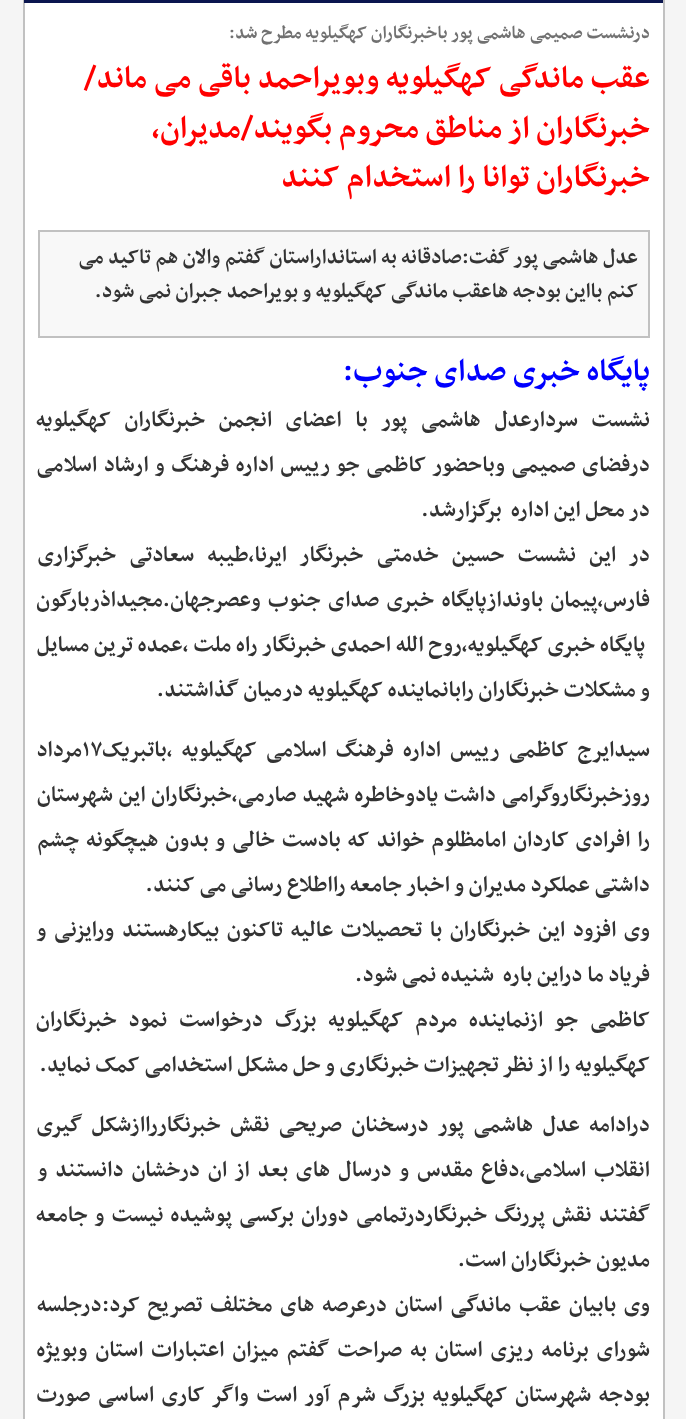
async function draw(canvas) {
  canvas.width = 686
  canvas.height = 1419
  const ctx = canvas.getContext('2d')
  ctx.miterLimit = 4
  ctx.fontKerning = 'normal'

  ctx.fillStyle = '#f5f5f5'
  ctx.fillRect(0, 0, 686, 1419)
  ctx.fillStyle = '#fff'
  ctx.fillRect(25, 3, 638, 1416)
  ctx.strokeStyle = '#c1c1c1'
  ctx.lineWidth = 2
  ctx.strokeRect(24, -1, 640, 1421)
  ctx.fillStyle = '#0b164f'
  ctx.fillRect(24, 0, 639, 3)
  ctx.direction = 'rtl'
  ctx.font = 'bold 21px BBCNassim'
  ctx.fillStyle = '#717171'
  ctx.fillText('درنشست صمیمی هاشمی پور باخبرنگاران کهگیلویه مطرح شد:', 650, 38)
  ctx.font = 'bold 36px BBCNassim'
  ctx.fillStyle = '#f00'
  ctx.fillText('عقب ماندگی کهگیلویه وبویراحمد باقی می ماند/', 650, 87)
  ctx.fillText('خبرنگاران از مناطق محروم بگویند/مدیران،', 650, 137)
  ctx.fillText('خبرنگاران توانا را', 650, 186)
  ctx.fillText('استخدام کنند', 451, 186)
  ctx.fillStyle = '#f8f8f8'
  ctx.beginPath()
  ctx.rect(39, 231, 610, 106)
  ctx.fill()
  ctx.stroke()
  ctx.font = 'bold 24px BBCNassim'
  ctx.fillStyle = '#333'
  ctx.fillText('عدل هاشمی پور گفت:صادقانه به استانداراستان گفتم والان هم تاکید می', 638, 263)
  ctx.fillText('کنم بااین بودجه هاعقب ماندگی کهگیلویه و بویراحمد جبران نمی شود.', 638, 297)
  ctx.font = 'bold 36px BBCNassim'
  ctx.fillStyle = '#00f'
  ctx.fillText('پایگاه خبری صدای جنوب:', 650, 380)
  ctx.wordSpacing = '9px'
  ctx.font = 'bold 25.5px BBCNassim'
  ctx.fillStyle = '#333'
  ctx.fillText('نشست سردارعدل هاشمی پور با اعضای انجمن خبرنگاران کهگیلویه', 650, 426)
  ctx.wordSpacing = '1.9px'
  ctx.fillText('درفضای صمیمی وباحضور کاظمی جو رییس اداره فرهنگ و ارشاد اسلامی', 650, 471)
  ctx.wordSpacing = '0px'
  ctx.fillText('در محل این اداره  برگزارشد.', 650, 516)
  ctx.wordSpacing = '8.5px'
  ctx.fillText('در این نشست حسین خدمتی خبرنگار ایرنا،طیبه سعادتی خبرگزاری', 650, 561)
  ctx.wordSpacing = '2.75px'
  ctx.fillText('فارس،پیمان باوندازپایگاه خبری صدای جنوب وعصرجهان.مجیداذربارگون', 650, 606)
  ctx.wordSpacing = '0.25px'
  ctx.fillText('پایگاه خبری کهگیلویه،روح الله احمدی خبرنگار راه ملت ،عمده ترین مسایل', 645, 651)
  ctx.wordSpacing = '0px'
  ctx.fillText('و مشکلات خبرنگاران رابانماینده کهگیلویه درمیان گذاشتند.', 650, 696)
  ctx.wordSpacing = '4.5px'
  ctx.fillText('سیدایرج کاظمی رییس اداره فرهنگ اسلامی کهگیلویه ،باتبریک', 650, 756)
  ctx.wordSpacing = '0px'
  ctx.direction = 'ltr'
  ctx.fillText('۱۷', 82, 756)
  ctx.direction = 'rtl'
  ctx.fillText('مرداد', 82, 756)
  ctx.wordSpacing = '1px'
  ctx.fillText('روزخبرنگاروگرامی داشت یادوخاطره شهید صارمی،خبرنگاران این شهرستان', 650, 801)
  ctx.wordSpacing = '2.25px'
  ctx.fillText('را افرادی کاردان امامظلوم خواند که بادست خالی و بدون هیچگونه چشم', 650, 846)
  ctx.wordSpacing = '0px'
  ctx.fillText('داشتی عملکرد مدیران و اخبار جامعه رااطلاع رسانی می کنند.', 650, 891)
  ctx.wordSpacing = '3px'
  ctx.fillText('وی افزود این خبرنگاران با تحصیلات عالیه تاکنون بیکارهستند ورایزنی و', 650, 936)
  ctx.wordSpacing = '0px'
  ctx.fillText('فریاد ما دراین باره  شنیده نمی شود‌.', 650, 981)
  ctx.wordSpacing = '7.25px'
  ctx.fillText('کاظمی جو ازنماینده مردم کهگیلویه بزرگ درخواست نمود خبرنگاران', 650, 1026)
  ctx.wordSpacing = '0px'
  ctx.fillText('کهگیلویه را از نظر تجهیزات خبرنگاری و حل مشکل استخدامی کمک نماید.', 650, 1071)
  ctx.wordSpacing = '4.75px'
  ctx.fillText('درادامه عدل هاشمی پور درسخنان صریحی نقش خبرنگارراازشکل گیری', 650, 1131)
  ctx.wordSpacing = '3.25px'
  ctx.fillText('انقلاب اسلامی،دفاع مقدس و درسال های بعد از ان درخشان دانستند و', 650, 1176)
  ctx.wordSpacing = '2.5px'
  ctx.fillText('گفتند نقش پررنگ خبرنگاردرتمامی دوران برکسی پوشیده نیست و جامعه', 650, 1221)
  ctx.wordSpacing = '0px'
  ctx.fillText('مدیون خبرنگاران است.', 650, 1266)
  ctx.wordSpacing = '3.25px'
  ctx.fillText('وی بابیان عقب ماندگی استان درعرصه های مختلف تصریح کرد:درجلسه', 650, 1311)
  ctx.wordSpacing = '3.4px'
  ctx.fillText('شورای برنامه ریزی استان به صراحت گفتم میزان اعتبارات استان وبویژه', 650, 1356)
  ctx.wordSpacing = '3px'
  ctx.fillText('بودجه شهرستان کهگیلویه بزرگ شرم آور است واگر کاری اساسی صورت', 650, 1401)
}

draw(document.querySelector('canvas'))
